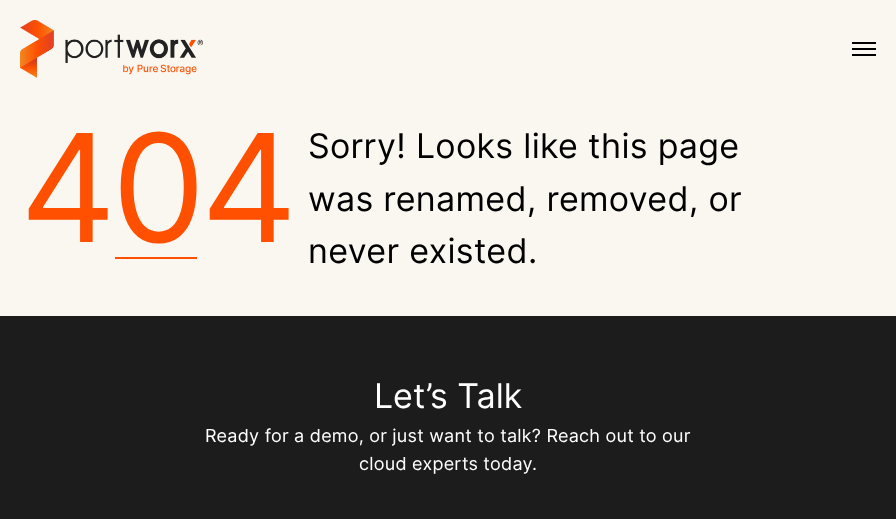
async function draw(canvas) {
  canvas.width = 896
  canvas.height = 519
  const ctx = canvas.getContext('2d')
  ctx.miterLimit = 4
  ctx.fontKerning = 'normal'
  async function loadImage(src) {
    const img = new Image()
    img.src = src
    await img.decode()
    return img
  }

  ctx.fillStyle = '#1c1c1c'
  ctx.fillRect(0, 0, 896, 519)
  ctx.fillStyle = '#faf7f1'
  ctx.fillRect(0, 0, 896, 316)
  ctx.drawImage(await loadImage('image0.png'), 20, 20, 183, 58)
  ctx.fillStyle = '#000'
  ctx.fillRect(852, 42, 24, 2)
  ctx.fillRect(852, 48, 24, 2)
  ctx.fillRect(852, 54, 24, 2)
  ctx.letterSpacing = '-4.5px'
  ctx.font = '150px Inter'
  ctx.fillStyle = '#fe5000'
  ctx.fillText('404', 20, 242)
  ctx.fillRect(115, 257, 82, 2)
  ctx.letterSpacing = '0.3px'
  ctx.font = '34px Inter'
  ctx.fillStyle = '#000'
  ctx.fillText('Sorry! Looks like this page', 308, 158)
  ctx.fillText('was renamed, removed, or', 308, 211)
  ctx.fillText('never existed.', 308, 263)
  ctx.letterSpacing = '0px'
  ctx.fillStyle = '#fff'
  ctx.fillText('Let’s Talk', 374, 408)
  ctx.letterSpacing = '0.22px'
  ctx.font = '18px Inter'
  ctx.fillText('Ready for a demo, or just want to talk? Reach out to our', 205, 442)
  ctx.fillText('cloud experts today.', 359, 470)
}

draw(document.querySelector('canvas'))
